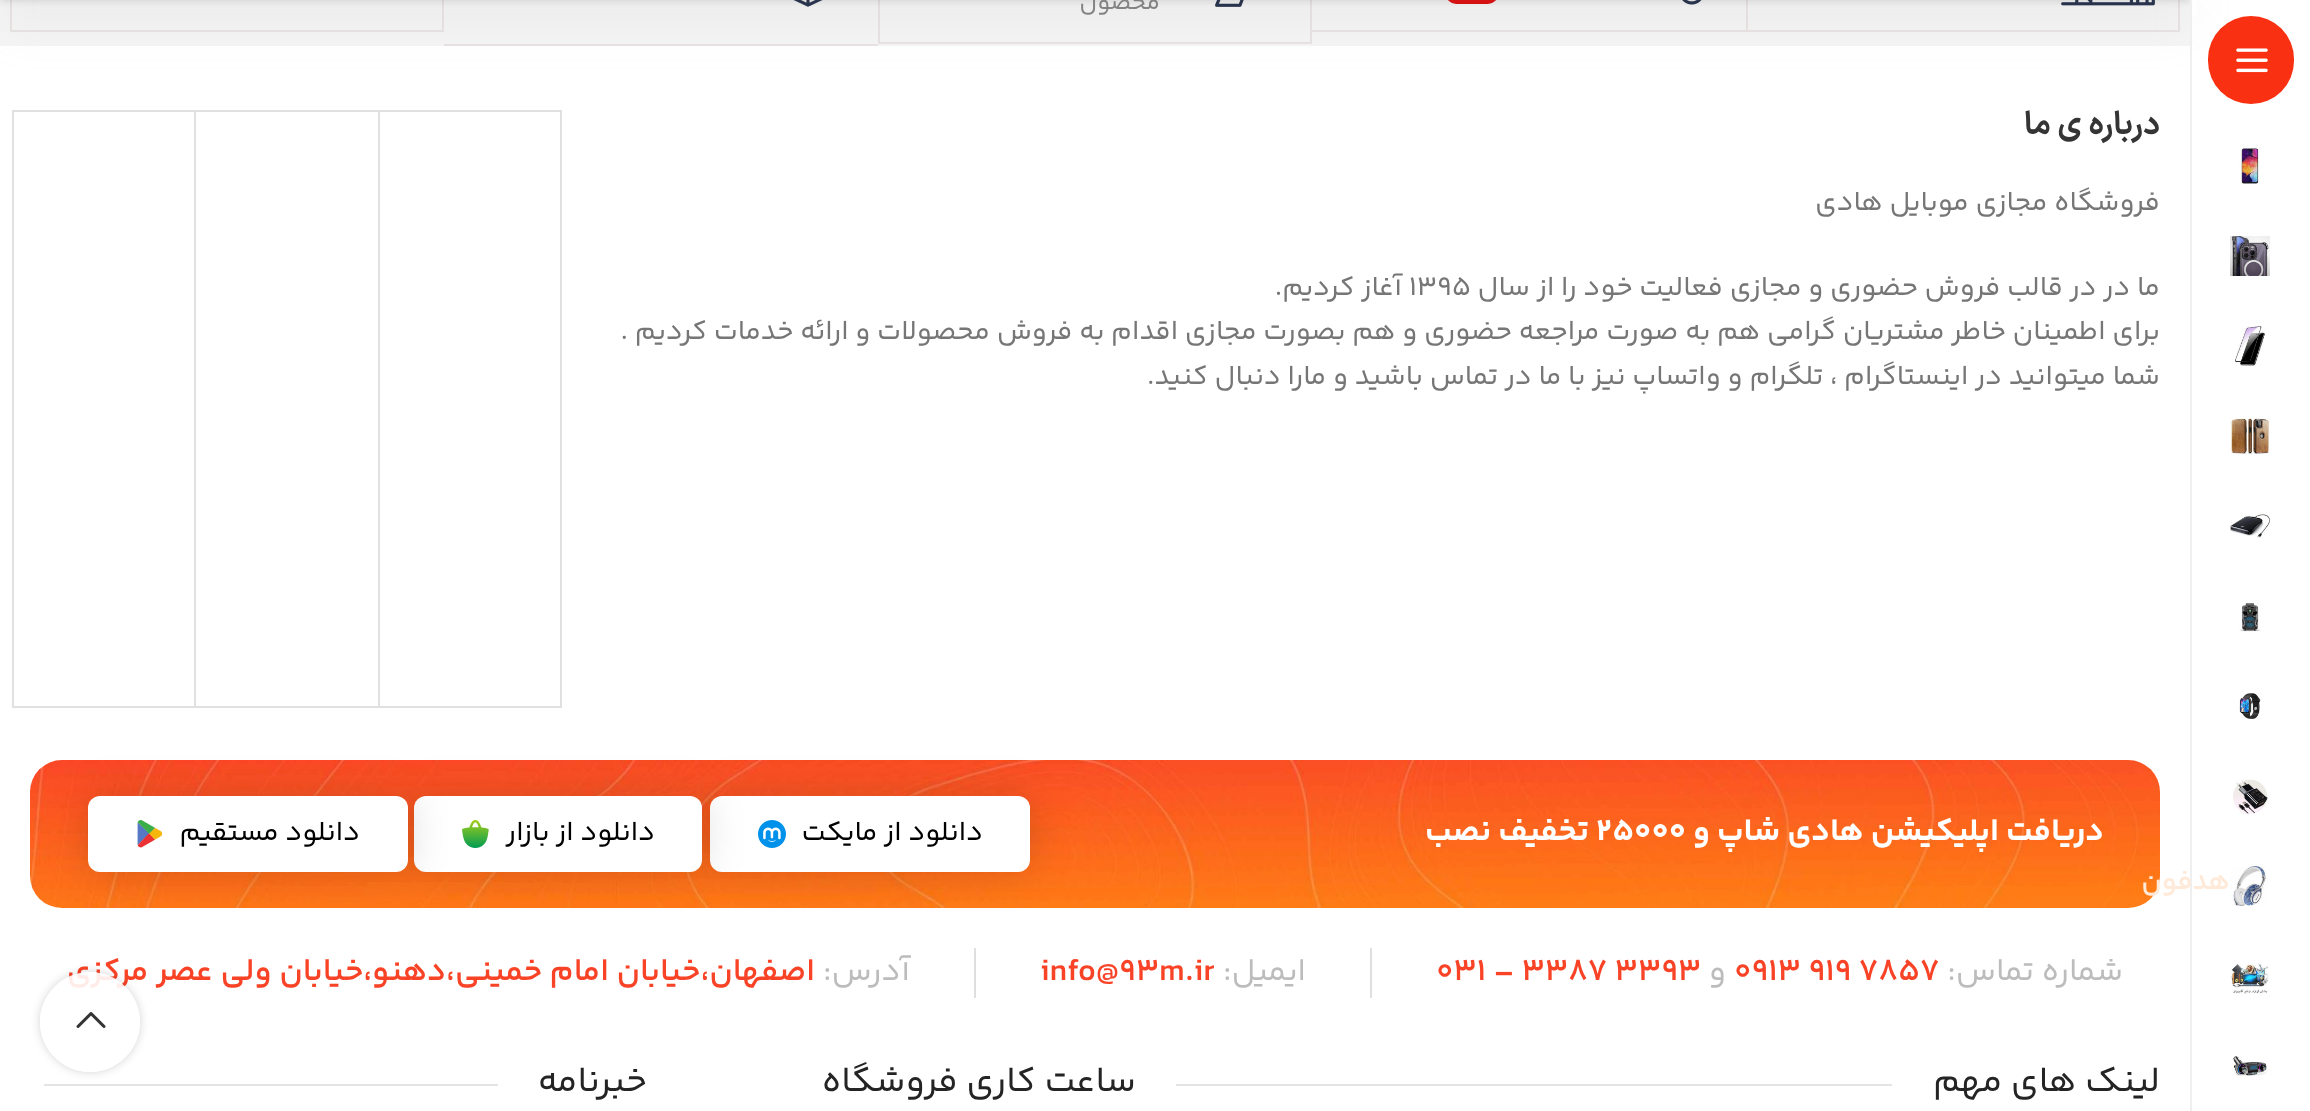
async function draw(canvas) {
  canvas.width = 2310
  canvas.height = 1111
  const ctx = canvas.getContext('2d')
  ctx.miterLimit = 4
  ctx.fontKerning = 'normal'
  async function loadImage(src) {
    const img = new Image()
    img.src = src
    await img.decode()
    return img
  }

  ctx.fillStyle = '#fff'
  ctx.fillRect(0, 0, 2310, 1111)
  ctx.fillStyle = '#f5f5f5'
  ctx.fillRect(0, 0, 2190, 46)
  ctx.strokeStyle = '#e8e2e2'
  ctx.lineWidth = 2
  ctx.strokeRect(1747, -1, 432, 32)
  ctx.drawImage(await loadImage('image12.png'), 2061, 0, 94, 6)
  ctx.drawImage(await loadImage('image13.png'), 1682, 0, 20, 5)
  ctx.strokeRect(879, -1, 432, 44)
  ctx.drawImage(await loadImage('image14.png'), 1215, 0, 29, 7)
  ctx.drawImage(await loadImage('image15.png'), 793, 0, 30, 7)
  ctx.strokeRect(11, -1, 432, 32)
  ctx.fillStyle = '#0000001a'
  ctx.filter = 'blur(3px)'
  ctx.beginPath()
  ctx.rect(0, -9, 2190, 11)
  ctx.fill()
  ctx.filter = 'none'
  ctx.fillStyle = '#e8e2e2'
  ctx.fillRect(1312, 30, 434, 2)
  ctx.fillRect(444, 44, 434, 2)
  ctx.fillStyle = '#b7b5b51a'
  ctx.filter = 'blur(20px)'
  ctx.beginPath()
  ctx.rect(0, -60, 2190, 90)
  ctx.fill()
  ctx.filter = 'none'
  ctx.fillStyle = '#fff'
  ctx.fillRect(2192, 0, 5, 16)
  ctx.fillStyle = '#efefef'
  ctx.fillRect(2190, 0, 2, 1111)
  ctx.fillStyle = '#f93011'
  ctx.beginPath()
  ctx.roundRect(2208, 16, 86, 88, 43)
  ctx.fill()
  ctx.drawImage(await loadImage('image0.png'), 2236, 48, 32, 25)
  ctx.drawImage(await loadImage('image1.png'), 2239, 146, 21, 38)
  ctx.drawImage(await loadImage('image2.png'), 2230, 236, 40, 40)
  ctx.drawImage(await loadImage('image3.png'), 2235, 326, 30, 40)
  ctx.drawImage(await loadImage('image4.png'), 2230, 417, 40, 38)
  ctx.drawImage(await loadImage('image5.png'), 2230, 514, 40, 24)
  ctx.drawImage(await loadImage('image6.png'), 2239, 603, 22, 29)
  ctx.drawImage(await loadImage('image7.png'), 2239, 693, 22, 26)
  ctx.drawImage(await loadImage('image8.png'), 2233, 779, 35, 36)
  ctx.drawImage(await loadImage('image9.png'), 2230, 866, 37, 40)
  ctx.drawImage(await loadImage('image16.png'), 30, 760, 2130, 148)
  ctx.direction = 'rtl'
  ctx.font = '600 28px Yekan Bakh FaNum'
  ctx.fillStyle = '#ffe9d9'
  ctx.fillText('هدفون', 2230, 889)
  ctx.drawImage(await loadImage('image10.png'), 2230, 963, 39, 31)
  ctx.drawImage(await loadImage('image11.png'), 2233, 1056, 34, 20)
  ctx.fillStyle = '#d41212'
  ctx.beginPath()
  ctx.roundRect(1446, -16, 52, 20, 16)
  ctx.fill()
  ctx.font = '24px Yekan Bakh FaNum'
  ctx.fillStyle = '#838383'
  ctx.fillText('محصول', 1160, 9)
  ctx.font = 'bold 32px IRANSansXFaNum'
  ctx.fillStyle = '#353535'
  ctx.fillText('درباره ی ما', 2160, 134)
  ctx.font = '28px Yekan Bakh FaNum'
  ctx.fillStyle = '#767676'
  ctx.fillText('فروشگاه مجازی موبایل هادی', 2160, 210)
  ctx.fillText('ما در در قالب فروش حضوری و مجازی فعالیت خود را از سال', 2160, 295)
  ctx.direction = 'ltr'
  ctx.fillText('1395', 1409, 295)
  ctx.direction = 'rtl'
  ctx.fillText('آغاز کردیم.', 1402, 295)
  ctx.fillText('برای اطمینان خاطر مشتریان گرامی هم به صورت مراجعه حضوری و هم بصورت مجازی اقدام به فروش محصولات و ارائه خدمات کردیم .', 2160, 339)
  ctx.fillText('شما میتوانید در اینستاگرام ، تلگرام و واتساپ نیز با ما در تماس باشید و مارا دنبال کنید.', 2160, 384)
  ctx.strokeStyle = '#e0e0e0'
  ctx.strokeRect(379, 111, 182, 596)
  ctx.fillStyle = '#e0e0e0'
  ctx.fillRect(196, 110, 182, 2)
  ctx.fillRect(196, 706, 182, 2)
  ctx.strokeRect(13, 111, 182, 596)
  ctx.font = 'bold 32px Yekan Bakh FaNum'
  ctx.fillStyle = '#fff'
  ctx.fillText('دریافت اپلیکیشن هادی شاپ و', 2104, 840)
  ctx.direction = 'ltr'
  ctx.fillText('25000', 1596, 840)
  ctx.direction = 'rtl'
  ctx.fillText('تخفیف نصب', 1589, 840)
  ctx.fillStyle = '#00000026'
  ctx.filter = 'blur(20px)'
  ctx.beginPath()
  ctx.roundRect(710, 796, 320, 76, 12)
  ctx.fill()
  ctx.filter = 'none'
  ctx.fillStyle = '#fff'
  ctx.beginPath()
  ctx.roundRect(710, 796, 320, 76, 12)
  ctx.fill()
  ctx.font = '28px Yekan Bakh FaNum'
  ctx.fillStyle = '#020101'
  ctx.fillText('دانلود از مایکت', 983, 840)
  ctx.drawImage(await loadImage('image17.png'), 758, 820, 28, 28)
  ctx.fillStyle = '#00000026'
  ctx.filter = 'blur(20px)'
  ctx.beginPath()
  ctx.roundRect(414, 796, 288, 76, 12)
  ctx.fill()
  ctx.filter = 'none'
  ctx.fillStyle = '#fff'
  ctx.beginPath()
  ctx.roundRect(414, 796, 288, 76, 12)
  ctx.fill()
  ctx.fillStyle = '#020101'
  ctx.fillText('دانلود از بازار', 655, 840)
  ctx.drawImage(await loadImage('image18.png'), 462, 820, 27, 28)
  ctx.fillStyle = '#00000026'
  ctx.filter = 'blur(20px)'
  ctx.beginPath()
  ctx.roundRect(88, 796, 320, 76, 12)
  ctx.fill()
  ctx.filter = 'none'
  ctx.fillStyle = '#fff'
  ctx.beginPath()
  ctx.roundRect(88, 796, 320, 76, 12)
  ctx.fill()
  ctx.fillStyle = '#020101'
  ctx.fillText('دانلود مستقیم', 360, 840)
  ctx.drawImage(await loadImage('image19.png'), 137, 820, 26, 28)
  ctx.font = '32px Yekan Bakh FaNum'
  ctx.fillStyle = '#bcbcbc'
  ctx.fillText('شماره تماس:', 2123, 980)
  ctx.direction = 'ltr'
  ctx.font = '600 32px Yekan Bakh FaNum'
  ctx.fillStyle = '#f94327'
  ctx.fillText('0913 919 7857', 1734, 980)
  ctx.direction = 'rtl'
  ctx.font = '32px Yekan Bakh FaNum'
  ctx.fillStyle = '#bcbcbc'
  ctx.fillText('و', 1726, 980)
  ctx.direction = 'ltr'
  ctx.font = '600 32px Yekan Bakh FaNum'
  ctx.fillStyle = '#f94327'
  ctx.fillText('031 – 3387 3393', 1436, 980)
  ctx.fillStyle = '#dfdfdf'
  ctx.fillRect(1370, 948, 2, 50)
  ctx.fillRect(974, 948, 2, 50)
  ctx.direction = 'rtl'
  ctx.font = '32px Yekan Bakh FaNum'
  ctx.fillStyle = '#bcbcbc'
  ctx.fillText('ایمیل:', 1306, 980)
  ctx.direction = 'ltr'
  ctx.font = '600 32px Yekan Bakh FaNum'
  ctx.fillStyle = '#f94327'
  ctx.fillText('info@93m.ir', 1040, 980)
  ctx.direction = 'rtl'
  ctx.font = '32px Yekan Bakh FaNum'
  ctx.fillStyle = '#bcbcbc'
  ctx.fillText('آدرس:', 910, 980)
  ctx.font = '600 32px Yekan Bakh FaNum'
  ctx.fillStyle = '#f94327'
  ctx.fillText('اصفهان،‌خیابان امام خمینی،دهنو،خیابان ولی عصر مرکزی', 815, 980)
  ctx.font = '36px Yekan Bakh FaNum'
  ctx.fillStyle = '#242424'
  ctx.fillText('لینک های مهم', 2160, 1091)
  ctx.fillStyle = '#e4e4e4'
  ctx.fillRect(1176, 1084, 716, 2)
  ctx.fillStyle = '#242424'
  ctx.fillText('ساعت کاری فروشگاه', 1136, 1091)
  ctx.fillText('خبرنامه', 647, 1091)
  ctx.fillStyle = '#e4e4e4'
  ctx.fillRect(44, 1084, 454, 2)
  ctx.save()
  ctx.beginPath()
  ctx.moveTo(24, 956)
  ctx.lineTo(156, 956)
  ctx.lineTo(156, 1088)
  ctx.lineTo(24, 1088)
  ctx.closePath()
  ctx.moveTo(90, 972)
  ctx.bezierCurveTo(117.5, 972, 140, 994.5, 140, 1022)
  ctx.bezierCurveTo(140, 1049.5, 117.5, 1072, 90, 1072)
  ctx.bezierCurveTo(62.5, 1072, 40, 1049.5, 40, 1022)
  ctx.bezierCurveTo(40, 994.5, 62.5, 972, 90, 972)
  ctx.closePath()
  ctx.clip('evenodd')
  ctx.fillStyle = '#0000002b'
  ctx.filter = 'blur(5px)'
  ctx.beginPath()
  ctx.roundRect(40, 972, 100, 100, 50)
  ctx.fill()
  ctx.filter = 'none'
  ctx.restore()
  ctx.fillStyle = '#ffffffe6'
  ctx.beginPath()
  ctx.arc(90, 1022, 50, 0, 2 * Math.PI)
  ctx.fill()
  ctx.drawImage(await loadImage('image20.png'), 76, 1012, 30, 16)
}

draw(document.querySelector('canvas'))
